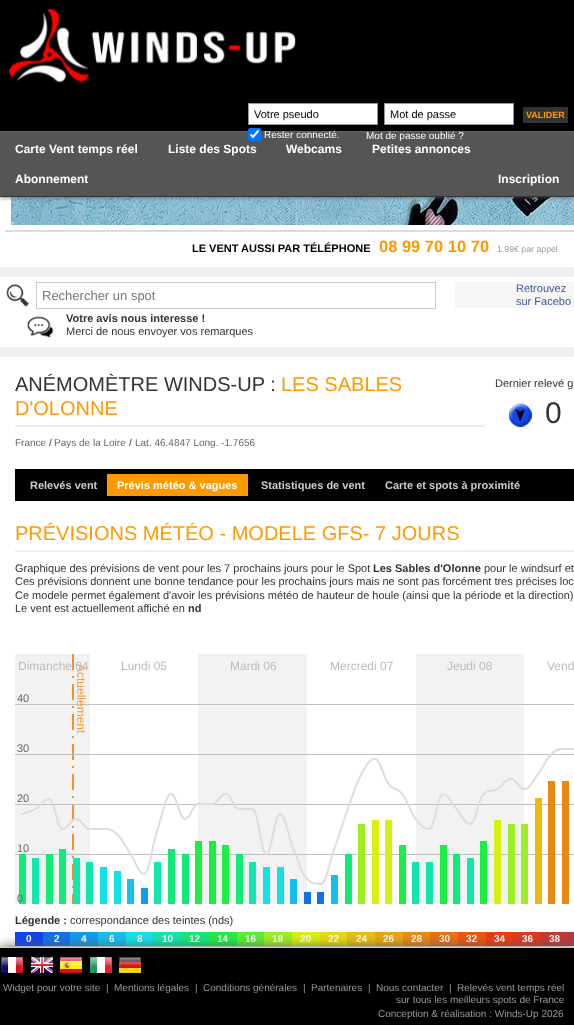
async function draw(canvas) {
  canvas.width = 574
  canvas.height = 1025
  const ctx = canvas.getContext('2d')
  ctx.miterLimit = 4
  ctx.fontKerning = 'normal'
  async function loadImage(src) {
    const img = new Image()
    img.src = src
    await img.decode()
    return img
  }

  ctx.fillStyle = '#eee'
  ctx.fillRect(0, 0, 574, 1025)
  ctx.fillStyle = '#fff'
  ctx.fillRect(0, 197, 574, 70)
  ctx.drawImage(await loadImage('image1.png'), 11, 197, 563, 28)
  ctx.fillStyle = '#555'
  ctx.filter = 'blur(2.5px)'
  ctx.beginPath()
  ctx.rect(0, 0, 574, 197)
  ctx.fill()
  ctx.filter = 'none'
  ctx.fillStyle = '#000'
  ctx.fillRect(0, 0, 574, 131)
  ctx.drawImage(await loadImage('image0.png'), 9, 9, 287, 74)
  ctx.fillStyle = '#fff'
  ctx.beginPath()
  ctx.rect(248.5, 103.5, 129, 21)
  ctx.fill()
  ctx.strokeStyle = '#999'
  ctx.stroke()
  ctx.font = '11px Liberation Sans'
  ctx.fillStyle = '#000'
  ctx.fillText('Votre pseudo', 254, 118)
  ctx.fillStyle = '#fff'
  ctx.beginPath()
  ctx.rect(384.5, 103.5, 129, 21)
  ctx.fill()
  ctx.stroke()
  ctx.fillStyle = '#000'
  ctx.fillText('Mot de passe', 390, 118)
  ctx.fillStyle = '#555'
  ctx.fillRect(0, 132, 574, 64)
  ctx.fillStyle = '#666'
  ctx.fillRect(0, 131, 574, 1)
  ctx.fillStyle = '#0075ff'
  ctx.beginPath()
  ctx.roundRect(248, 128, 13, 13, 2)
  ctx.fill()
  ctx.beginPath()
  ctx.moveTo(250.5, 134.5)
  ctx.lineTo(253, 137)
  ctx.lineTo(258.5, 130.5)
  ctx.strokeStyle = '#fff'
  ctx.lineWidth = 2.1
  ctx.stroke()
  ctx.font = '10px Liberation Sans'
  ctx.fillStyle = '#fff'
  ctx.fillText('Rester connecté.', 264, 138)
  ctx.fillText('Mot de passe oublié ?', 366, 139)
  ctx.fillStyle = '#333'
  ctx.fillRect(523, 107, 45, 16)
  ctx.font = 'bold 9px Liberation Sans'
  ctx.fillStyle = '#f90'
  ctx.fillText('VALIDER', 526, 118)
  ctx.fillStyle = '#333'
  ctx.fillRect(0, 196, 574, 1)
  ctx.font = 'bold 12px Liberation Sans'
  ctx.fillStyle = '#fff'
  ctx.fillText('Carte Vent temps réel', 15, 153)
  ctx.fillText('Liste des Spots', 168, 153)
  ctx.fillText('Webcams', 286, 153)
  ctx.fillText('Petites annonces', 372, 153)
  ctx.fillText('Abonnement', 15, 183)
  ctx.fillText('Inscription', 498, 183)
  ctx.fillStyle = '#ddd'
  ctx.fillRect(5, 230, 569, 2)
  ctx.font = 'bold 11px Liberation Sans'
  ctx.fillStyle = '#000'
  ctx.fillText('LE VENT AUSSI PAR TÉLÉPHONE', 192, 252)
  ctx.font = 'bold 16.5px Liberation Sans'
  ctx.fillStyle = '#f90'
  ctx.fillText('08 99 70 10 70', 379, 252)
  ctx.font = '8.75px Liberation Sans'
  ctx.fillStyle = '#999'
  ctx.fillText('1.99€ par appel', 497, 252)
  ctx.fillStyle = '#fff'
  ctx.fillRect(0, 277, 574, 70)
  ctx.drawImage(await loadImage('image2.png'), 6, 284, 23, 23)
  ctx.strokeStyle = '#ccc'
  ctx.lineWidth = 1
  ctx.strokeRect(36.5, 282.5, 399, 26)
  ctx.font = '13px Liberation Sans'
  ctx.fillStyle = '#777'
  ctx.fillText('Rechercher un spot', 42, 300)
  ctx.fillStyle = '#f6f6f6'
  ctx.fillRect(455, 282, 119, 26)
  ctx.font = '11px Liberation Sans'
  ctx.fillStyle = '#3b5998'
  ctx.fillText('Retrouvez', 516, 292)
  ctx.fillText('sur Facebo', 516, 305)
  ctx.drawImage(await loadImage('image3.png'), 27, 316, 27, 22)
  ctx.font = 'bold 11px Liberation Sans'
  ctx.fillStyle = '#333'
  ctx.fillText('Votre avis nous interesse !', 66, 322)
  ctx.font = '11px Liberation Sans'
  ctx.fillText('Merci de nous envoyer vos remarques', 66, 335)
  ctx.fillStyle = '#fff'
  ctx.fillRect(0, 357, 574, 590)
  ctx.fillStyle = '#eee'
  ctx.fillRect(15, 425, 470, 2)
  ctx.font = '20px Liberation Sans'
  ctx.fillStyle = '#333'
  ctx.fillText('ANÉMOMÈTRE WINDS-UP :', 15, 391)
  ctx.fillStyle = '#f90'
  ctx.fillText('LES SABLES', 281, 391)
  ctx.fillText('D\'OLONNE', 15, 415)
  ctx.font = '10px Liberation Sans'
  ctx.fillStyle = '#666'
  ctx.fillText('France', 15, 446)
  ctx.fillStyle = '#333'
  ctx.fillText('/', 49, 446)
  ctx.fillStyle = '#666'
  ctx.fillText('Pays de la Loire', 54, 446)
  ctx.fillStyle = '#333'
  ctx.fillText('/', 129, 446)
  ctx.fillStyle = '#666'
  ctx.fillText('Lat. 46.4847 Long. -1.7656', 135, 446)
  ctx.font = '11px Liberation Sans'
  ctx.fillStyle = '#333'
  ctx.fillText('Dernier relevé g', 495, 387)
  ctx.drawImage(await loadImage('image4.png'), 509, 403, 23, 24)
  ctx.font = '30px Liberation Sans'
  ctx.fillText('0', 545, 423)
  ctx.fillStyle = '#000'
  ctx.fillRect(15, 469, 559, 32)
  ctx.font = 'bold 11px Liberation Sans'
  ctx.fillStyle = '#ccc'
  ctx.fillText('Relevés vent', 30, 489)
  ctx.fillStyle = '#f90'
  ctx.fillRect(107, 474, 141, 22)
  ctx.fillStyle = '#fff'
  ctx.fillText('Prévis météo & vagues', 117, 489)
  ctx.font = '11px Liberation Sans'
  ctx.fillStyle = '#333'
  ctx.fillText(';', 248, 489)
  ctx.font = 'bold 11px Liberation Sans'
  ctx.fillStyle = '#ccc'
  ctx.fillText('Statistiques de vent', 261, 489)
  ctx.fillText('Carte et spots à proximité', 385, 489)
  ctx.fillStyle = '#eee'
  ctx.fillRect(15, 550, 559, 2)
  ctx.font = '20px Liberation Sans'
  ctx.fillStyle = '#f90'
  ctx.fillText('PRÉVISIONS MÉTÉO - MODELE GFS- 7 JOURS', 15, 540)
  ctx.font = '11px Liberation Sans'
  ctx.fillStyle = '#333'
  ctx.fillText('Graphique des prévisions de vent pour les 7 prochains jours pour le Spot', 15, 572)
  ctx.font = 'bold 11px Liberation Sans'
  ctx.fillText('Les Sables d\'Olonne', 373, 572)
  ctx.font = '11px Liberation Sans'
  ctx.fillText('pour le windsurf et', 484, 572)
  ctx.fillText('Ces prévisions donnent une bonne tendance pour les prochains jours mais ne sont pas forcément tres précises loc', 15, 585)
  ctx.fillText('Ce modele permet également d\'avoir les prévisions météo de hauteur de houle (ainsi que la période et la direction)', 15, 599)
  ctx.fillText('Le vent est actuellement affiché en', 15, 612)
  ctx.font = 'bold 11px Liberation Sans'
  ctx.fillText('nd', 188, 612)
  ctx.drawImage(await loadImage('image5.png'), 15, 654, 559, 250)
  ctx.font = '12px Liberation Sans'
  ctx.fillStyle = '#f93'
  ctx.save()
  ctx.translate(77, 664)
  ctx.rotate(90 * Math.PI / 180)
  ctx.fillText('Actuellement', 0, 0)
  ctx.restore()
  ctx.fillStyle = '#bbb'
  ctx.fillText('Dimanche 04', 18, 670)
  ctx.fillText('Lundi 05', 121, 670)
  ctx.fillText('Mardi 06', 230, 670)
  ctx.fillText('Mercredi 07', 330, 670)
  ctx.fillText('Jeudi 08', 447, 670)
  ctx.fillText('Vend', 547, 670)
  ctx.font = '11px Liberation Sans'
  ctx.fillStyle = '#666'
  ctx.fillText('40', 17, 702)
  ctx.fillText('30', 17, 752)
  ctx.fillText('20', 17, 802)
  ctx.fillText('10', 17, 852)
  ctx.fillText('0', 17, 902)
  ctx.font = 'bold 11px Liberation Sans'
  ctx.fillStyle = '#333'
  ctx.fillText('Légende :', 15, 924)
  ctx.font = '11px Liberation Sans'
  ctx.fillText('correspondance des teintes (nds)', 70, 924)
  ctx.fillStyle = '#1246ed'
  ctx.fillRect(15, 932, 28, 14)
  ctx.font = 'bold 10px Liberation Sans'
  ctx.fillStyle = '#fff'
  ctx.fillText('0', 26, 942)
  ctx.fillStyle = '#1270ed'
  ctx.fillRect(43, 932, 27, 14)
  ctx.fillStyle = '#fff'
  ctx.fillText('2', 54, 942)
  ctx.fillStyle = '#129aed'
  ctx.fillRect(70, 932, 28, 14)
  ctx.fillStyle = '#fff'
  ctx.fillText('4', 81, 942)
  ctx.fillStyle = '#12bfed'
  ctx.fillRect(98, 932, 28, 14)
  ctx.fillStyle = '#fff'
  ctx.fillText('6', 109, 942)
  ctx.fillStyle = '#11e2e7'
  ctx.fillRect(126, 932, 27, 14)
  ctx.fillStyle = '#fff'
  ctx.fillText('8', 137, 942)
  ctx.fillStyle = '#11e6ad'
  ctx.fillRect(153, 932, 28, 14)
  ctx.fillStyle = '#fff'
  ctx.fillText('10', 162, 942)
  ctx.fillStyle = '#11ea77'
  ctx.fillRect(181, 932, 28, 14)
  ctx.fillStyle = '#fff'
  ctx.fillText('12', 189, 942)
  ctx.fillStyle = '#1dee44'
  ctx.fillRect(209, 932, 28, 14)
  ctx.fillStyle = '#fff'
  ctx.fillText('14', 217, 942)
  ctx.fillStyle = '#59ee34'
  ctx.fillRect(237, 932, 27, 14)
  ctx.fillStyle = '#fff'
  ctx.fillText('16', 245, 942)
  ctx.fillStyle = '#9bef22'
  ctx.fillRect(264, 932, 28, 14)
  ctx.fillStyle = '#fff'
  ctx.fillText('18', 272, 942)
  ctx.fillStyle = '#d7ef12'
  ctx.fillRect(292, 932, 28, 14)
  ctx.fillStyle = '#fff'
  ctx.fillText('20', 300, 942)
  ctx.fillStyle = '#e5d90f'
  ctx.fillRect(320, 932, 27, 14)
  ctx.fillStyle = '#fff'
  ctx.fillText('22', 328, 942)
  ctx.fillStyle = '#e7be0f'
  ctx.fillRect(347, 932, 28, 14)
  ctx.fillStyle = '#fff'
  ctx.fillText('24', 356, 942)
  ctx.fillStyle = '#e9a50f'
  ctx.fillRect(375, 932, 28, 14)
  ctx.fillStyle = '#fff'
  ctx.fillText('26', 383, 942)
  ctx.fillStyle = '#ea890f'
  ctx.fillRect(403, 932, 27, 14)
  ctx.fillStyle = '#fff'
  ctx.fillText('28', 411, 942)
  ctx.fillStyle = '#ec6e0f'
  ctx.fillRect(430, 932, 28, 14)
  ctx.fillStyle = '#fff'
  ctx.fillText('30', 439, 942)
  ctx.fillStyle = '#ee550f'
  ctx.fillRect(458, 932, 28, 14)
  ctx.fillStyle = '#fff'
  ctx.fillText('32', 466, 942)
  ctx.fillStyle = '#ee3b10'
  ctx.fillRect(486, 932, 27, 14)
  ctx.fillStyle = '#fff'
  ctx.fillText('34', 494, 942)
  ctx.fillStyle = '#db3a23'
  ctx.fillRect(513, 932, 28, 14)
  ctx.fillStyle = '#fff'
  ctx.fillText('36', 522, 942)
  ctx.fillStyle = '#c73937'
  ctx.fillRect(541, 932, 28, 14)
  ctx.fillStyle = '#fff'
  ctx.fillText('38', 549, 942)
  ctx.fillStyle = '#b53849'
  ctx.fillRect(569, 932, 5, 14)
  ctx.fillStyle = '#555'
  ctx.filter = 'blur(6px)'
  ctx.beginPath()
  ctx.rect(0, 947, 574, 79)
  ctx.fill()
  ctx.filter = 'none'
  ctx.fillStyle = '#000'
  ctx.fillRect(0, 948, 574, 77)
  ctx.fillStyle = '#ccc'
  ctx.fillRect(0, 947, 574, 1)
  ctx.drawImage(await loadImage('image6.png'), 1, 957, 22, 16)
  ctx.drawImage(await loadImage('image7.png'), 31, 957, 22, 16)
  ctx.drawImage(await loadImage('image8.png'), 60, 957, 22, 16)
  ctx.drawImage(await loadImage('image9.png'), 90, 957, 22, 16)
  ctx.drawImage(await loadImage('image10.png'), 119, 957, 22, 16)
  ctx.font = '10px Liberation Sans'
  ctx.fillStyle = '#999'
  ctx.fillText('Widget pour votre site', 3, 991)
  ctx.fillText('|', 106, 991)
  ctx.fillText('Mentions légales', 114, 991)
  ctx.fillText('|', 195, 991)
  ctx.fillText('Conditions générales', 203, 991)
  ctx.fillText('|', 303, 991)
  ctx.fillText('Partenaires', 311, 991)
  ctx.fillText('|', 368, 991)
  ctx.fillText('Nous contacter', 376, 991)
  ctx.fillText('|', 449, 991)
  ctx.fillText('Relevés vent temps réel', 457, 991)
  ctx.fillText('sur tous les meilleurs spots de France', 396, 1003)
  ctx.fillText('Conception & réalisation : Winds-Up 2026', 378, 1017)
}

draw(document.querySelector('canvas'))
